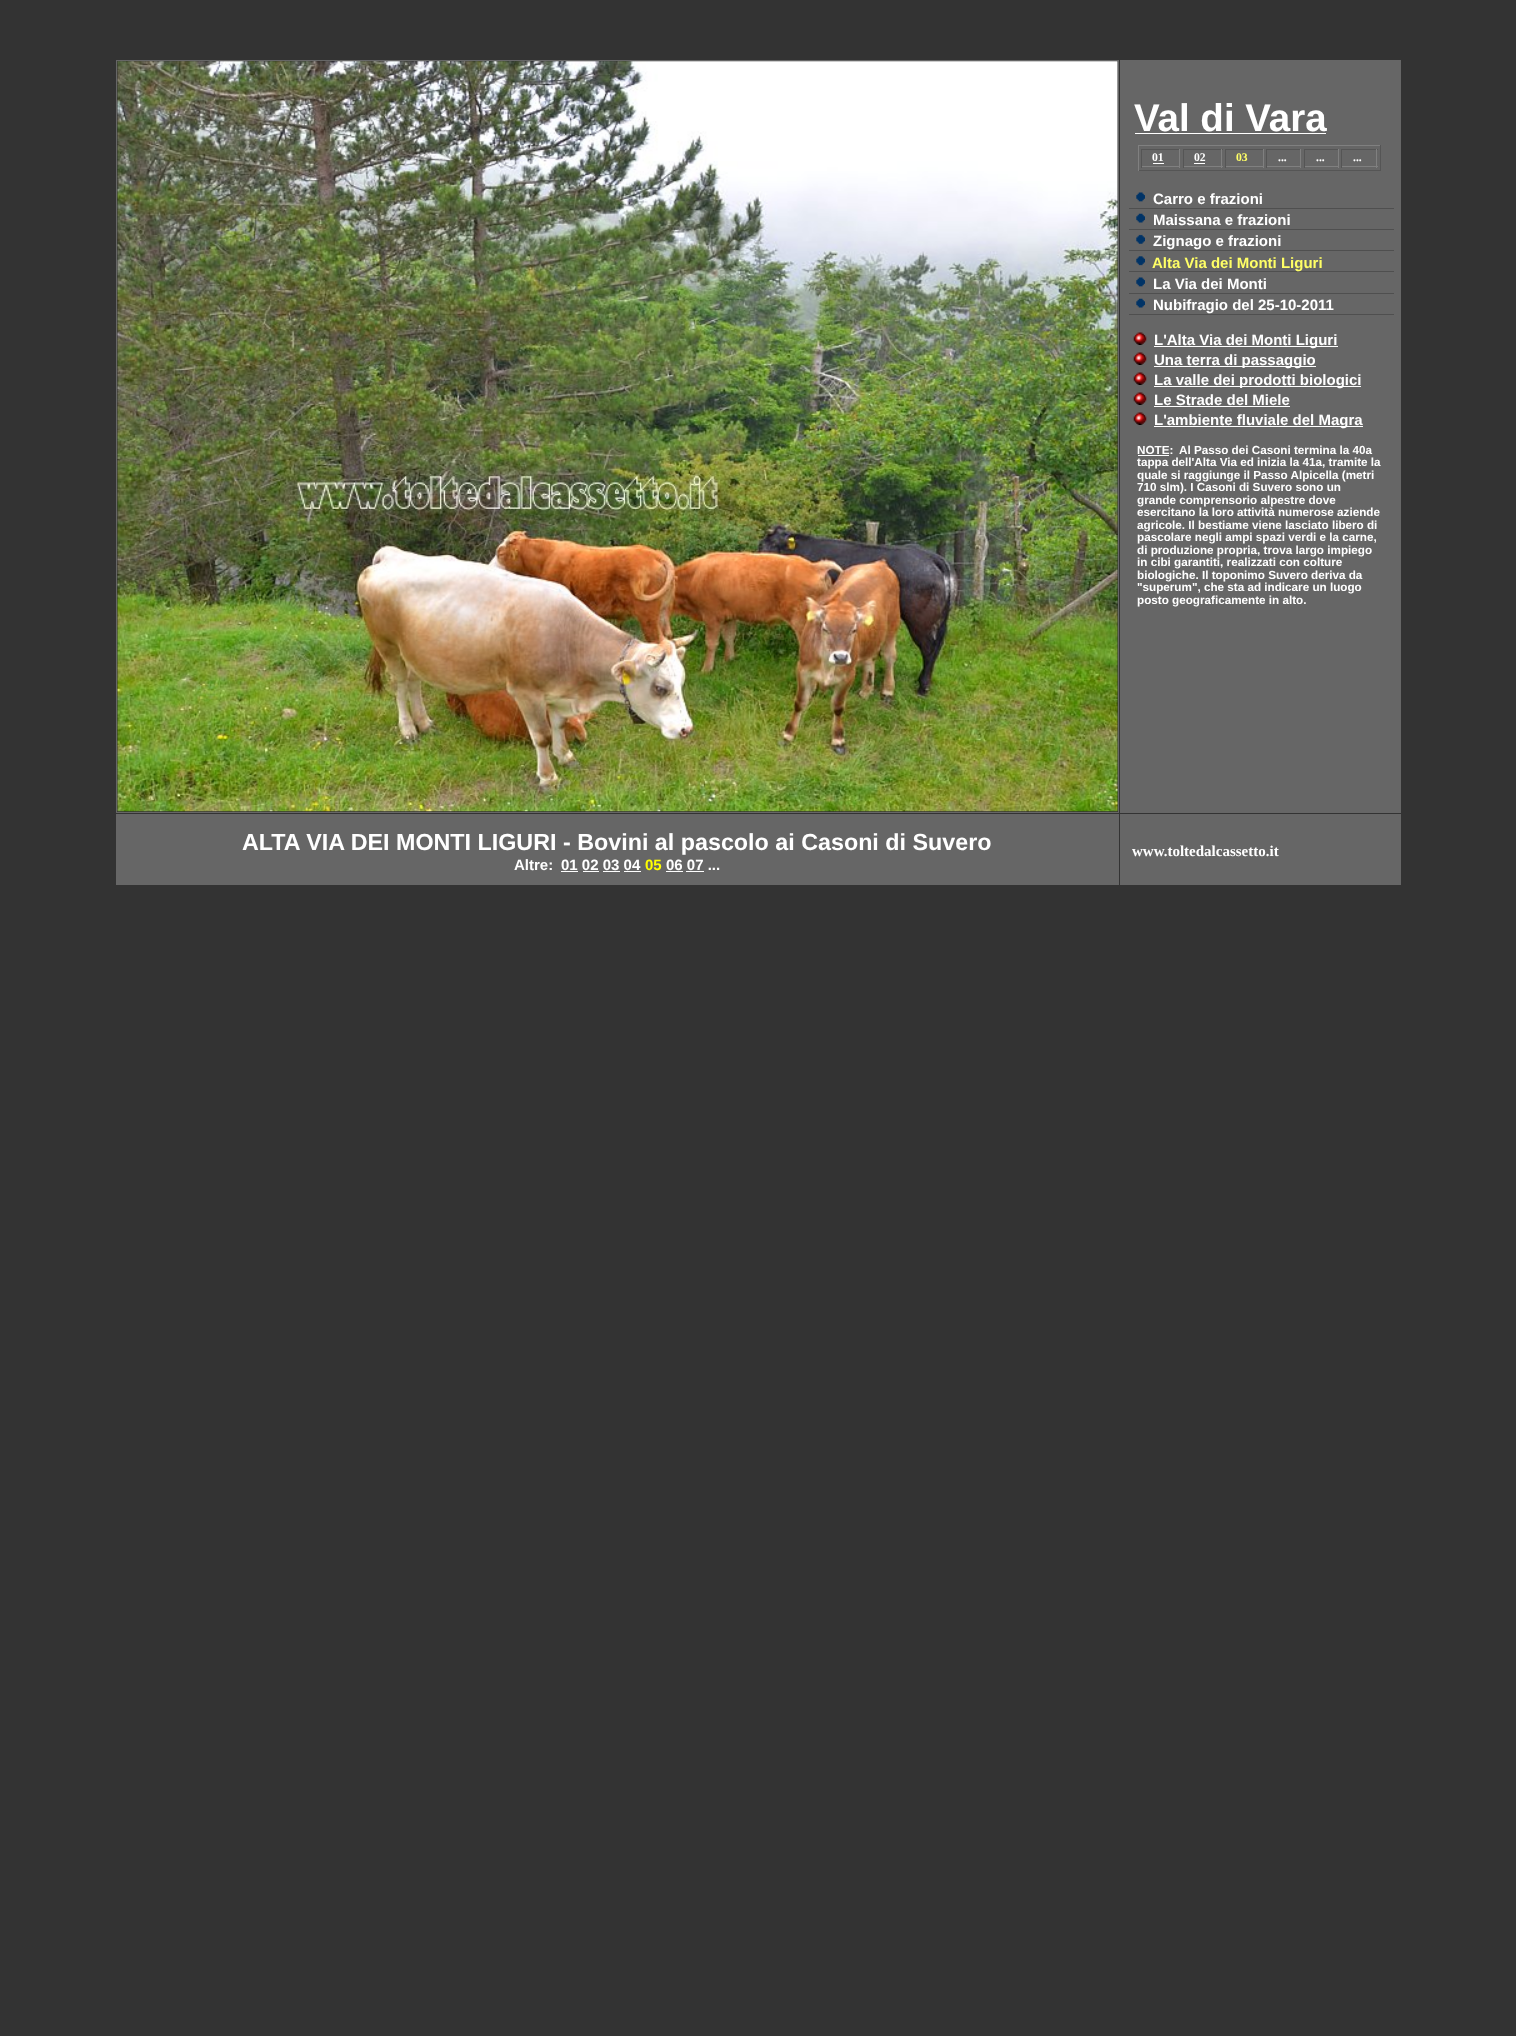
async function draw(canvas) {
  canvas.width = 1516
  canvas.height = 2036
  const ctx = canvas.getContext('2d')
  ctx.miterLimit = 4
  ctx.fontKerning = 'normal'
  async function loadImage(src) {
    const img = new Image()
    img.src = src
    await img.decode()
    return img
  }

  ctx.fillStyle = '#333'
  ctx.fillRect(0, 0, 1516, 2036)
  ctx.strokeStyle = '#666'
  ctx.strokeRect(116.5, 60.5, 1002, 752)
  ctx.drawImage(await loadImage('image0.png'), 117, 61, 1001, 751)
  ctx.fillStyle = '#666'
  ctx.fillRect(1120, 60, 281, 753)
  ctx.font = 'bold 38.5px Liberation Sans'
  ctx.fillStyle = '#fff'
  ctx.fillText('Val di Vara', 1134, 131)
  ctx.fillRect(1135, 133, 191, 1)
  ctx.fillStyle = '#808080'
  ctx.fillRect(1138, 145, 243, 1)
  ctx.fillStyle = '#555'
  ctx.fillRect(1380, 145, 1, 26)
  ctx.fillRect(1138, 170, 243, 1)
  ctx.fillStyle = '#808080'
  ctx.fillRect(1138, 145, 1, 26)
  ctx.fillStyle = '#555'
  ctx.fillRect(1141, 149, 39, 1)
  ctx.fillStyle = '#808080'
  ctx.fillRect(1179, 149, 1, 19)
  ctx.fillRect(1141, 166, 39, 1)
  ctx.fillStyle = '#555'
  ctx.fillRect(1141, 149, 1, 19)
  ctx.font = 'bold 11.7px Liberation Serif'
  ctx.fillStyle = '#fff'
  ctx.fillText('01', 1152, 161)
  ctx.fillRect(1153, 163, 11, 1)
  ctx.fillStyle = '#555'
  ctx.fillRect(1183, 149, 40, 1)
  ctx.fillStyle = '#808080'
  ctx.fillRect(1221, 149, 1, 19)
  ctx.fillRect(1183, 166, 40, 1)
  ctx.fillStyle = '#555'
  ctx.fillRect(1183, 149, 1, 19)
  ctx.fillStyle = '#fff'
  ctx.fillText('02', 1194, 161)
  ctx.fillRect(1194, 163, 11, 1)
  ctx.fillStyle = '#555'
  ctx.fillRect(1225, 149, 39, 1)
  ctx.fillStyle = '#808080'
  ctx.fillRect(1263, 149, 1, 19)
  ctx.fillRect(1225, 166, 39, 1)
  ctx.fillStyle = '#555'
  ctx.fillRect(1225, 149, 1, 19)
  ctx.fillStyle = '#ff6'
  ctx.fillText('03', 1236, 161)
  ctx.fillStyle = '#555'
  ctx.fillRect(1266, 149, 35, 1)
  ctx.fillStyle = '#808080'
  ctx.fillRect(1300, 149, 1, 19)
  ctx.fillRect(1266, 166, 35, 1)
  ctx.fillStyle = '#555'
  ctx.fillRect(1266, 149, 1, 19)
  ctx.fillStyle = '#fff'
  ctx.fillText('...', 1278, 161)
  ctx.fillStyle = '#555'
  ctx.fillRect(1304, 149, 35, 1)
  ctx.fillStyle = '#808080'
  ctx.fillRect(1338, 149, 1, 19)
  ctx.fillRect(1304, 166, 35, 1)
  ctx.fillStyle = '#555'
  ctx.fillRect(1304, 149, 1, 19)
  ctx.fillStyle = '#fff'
  ctx.fillText('...', 1316, 161)
  ctx.fillStyle = '#555'
  ctx.fillRect(1341, 149, 37, 1)
  ctx.fillStyle = '#808080'
  ctx.fillRect(1376, 149, 1, 19)
  ctx.fillRect(1341, 166, 37, 1)
  ctx.fillStyle = '#555'
  ctx.fillRect(1341, 149, 1, 19)
  ctx.fillStyle = '#fff'
  ctx.fillText('...', 1353, 161)
  ctx.fillStyle = '#4f4f4f'
  ctx.fillRect(1129, 208, 265, 1)
  ctx.drawImage(await loadImage('image1.png'), 1136, 192, 9, 10)
  ctx.font = 'bold 15px Liberation Sans'
  ctx.fillStyle = '#fff'
  ctx.fillText('Carro e frazioni', 1153, 204)
  ctx.fillStyle = '#4f4f4f'
  ctx.fillRect(1129, 229, 265, 1)
  ctx.drawImage(await loadImage('image2.png'), 1136, 213, 9, 10)
  ctx.fillStyle = '#fff'
  ctx.fillText('Maissana e frazioni', 1153, 225)
  ctx.fillStyle = '#4f4f4f'
  ctx.fillRect(1129, 250, 265, 1)
  ctx.drawImage(await loadImage('image3.png'), 1136, 234, 9, 10)
  ctx.fillStyle = '#fff'
  ctx.fillText('Zignago e frazioni', 1153, 246)
  ctx.fillStyle = '#4f4f4f'
  ctx.fillRect(1129, 271, 265, 1)
  ctx.drawImage(await loadImage('image4.png'), 1136, 256, 9, 10)
  ctx.fillStyle = '#ff6'
  ctx.fillText('Alta Via dei Monti Liguri', 1152, 268)
  ctx.fillStyle = '#4f4f4f'
  ctx.fillRect(1129, 293, 265, 1)
  ctx.drawImage(await loadImage('image1.png'), 1136, 277, 9, 10)
  ctx.fillStyle = '#fff'
  ctx.fillText('La Via dei Monti', 1153, 289)
  ctx.fillStyle = '#4f4f4f'
  ctx.fillRect(1129, 314, 265, 1)
  ctx.drawImage(await loadImage('image2.png'), 1136, 298, 9, 10)
  ctx.fillStyle = '#fff'
  ctx.fillText('Nubifragio del 25-10-2011', 1153, 310)
  ctx.drawImage(await loadImage('image5.png'), 1133, 332, 14, 13)
  ctx.fillRect(1154, 346, 184, 1)
  ctx.fillText('L\'Alta Via dei Monti Liguri', 1154, 345)
  ctx.drawImage(await loadImage('image5.png'), 1133, 352, 14, 13)
  ctx.fillRect(1154, 366, 162, 1)
  ctx.fillText('Una terra di passaggio', 1154, 365)
  ctx.drawImage(await loadImage('image5.png'), 1133, 372, 14, 13)
  ctx.fillRect(1154, 386, 207, 1)
  ctx.fillText('La valle dei prodotti biologici', 1154, 385)
  ctx.drawImage(await loadImage('image5.png'), 1133, 392, 14, 13)
  ctx.fillText('Le Strade del Miele', 1154, 405)
  ctx.fillRect(1154, 406, 136, 1)
  ctx.drawImage(await loadImage('image5.png'), 1133, 412, 14, 13)
  ctx.fillRect(1154, 426, 209, 1)
  ctx.fillText('L\'ambiente fluviale del Magra', 1154, 425)
  ctx.font = 'bold 11.7px Liberation Sans'
  ctx.fillText('NOTE:', 1137, 454)
  ctx.fillRect(1138, 455, 31, 1)
  ctx.fillText('Al Passo dei Casoni termina la 40a', 1179, 454)
  ctx.fillText('tappa dell\'Alta Via ed inizia la 41a, tramite la', 1137, 466)
  ctx.fillText('quale si raggiunge il Passo Alpicella (metri', 1137, 479)
  ctx.fillText('710 slm). I Casoni di Suvero sono un', 1137, 491)
  ctx.fillText('grande comprensorio alpestre dove', 1137, 504)
  ctx.fillText('esercitano la loro attività numerose aziende', 1137, 516)
  ctx.fillText('agricole. Il bestiame viene lasciato libero di', 1137, 529)
  ctx.fillText('pascolare negli ampi spazi verdi e la carne,', 1137, 541)
  ctx.fillText('di produzione propria, trova largo impiego', 1137, 554)
  ctx.fillText('in cibi garantiti, realizzati con colture', 1137, 566)
  ctx.fillText('biologiche. Il toponimo Suvero deriva da', 1137, 579)
  ctx.fillText('"superum", che sta ad indicare un luogo', 1137, 591)
  ctx.fillText('posto geograficamente in alto.', 1137, 604)
  ctx.fillStyle = '#666'
  ctx.fillRect(116, 814, 1003, 71)
  ctx.font = 'bold 23.3px Liberation Sans'
  ctx.fillStyle = '#fff'
  ctx.fillText('ALTA VIA DEI MONTI LIGURI - Bovini al pascolo ai Casoni di Suvero', 242, 850)
  ctx.font = 'bold 15px Liberation Sans'
  ctx.fillText('Altre:', 514, 870)
  ctx.fillText('01 02 03 04', 561, 870)
  ctx.fillRect(561, 871, 17, 1)
  ctx.fillRect(583, 871, 16, 1)
  ctx.fillRect(603, 871, 17, 1)
  ctx.fillRect(624, 871, 17, 1)
  ctx.fillStyle = '#ff0'
  ctx.fillText('05', 645, 870)
  ctx.fillStyle = '#fff'
  ctx.fillText('06 07 ...', 666, 870)
  ctx.fillRect(666, 871, 17, 1)
  ctx.fillRect(686, 871, 18, 1)
  ctx.fillStyle = '#666'
  ctx.fillRect(1120, 814, 281, 71)
  ctx.font = 'bold 15px Liberation Serif'
  ctx.fillStyle = '#fff'
  ctx.fillText('www.toltedalcassetto.it', 1132, 856)
}

draw(document.querySelector('canvas'))
